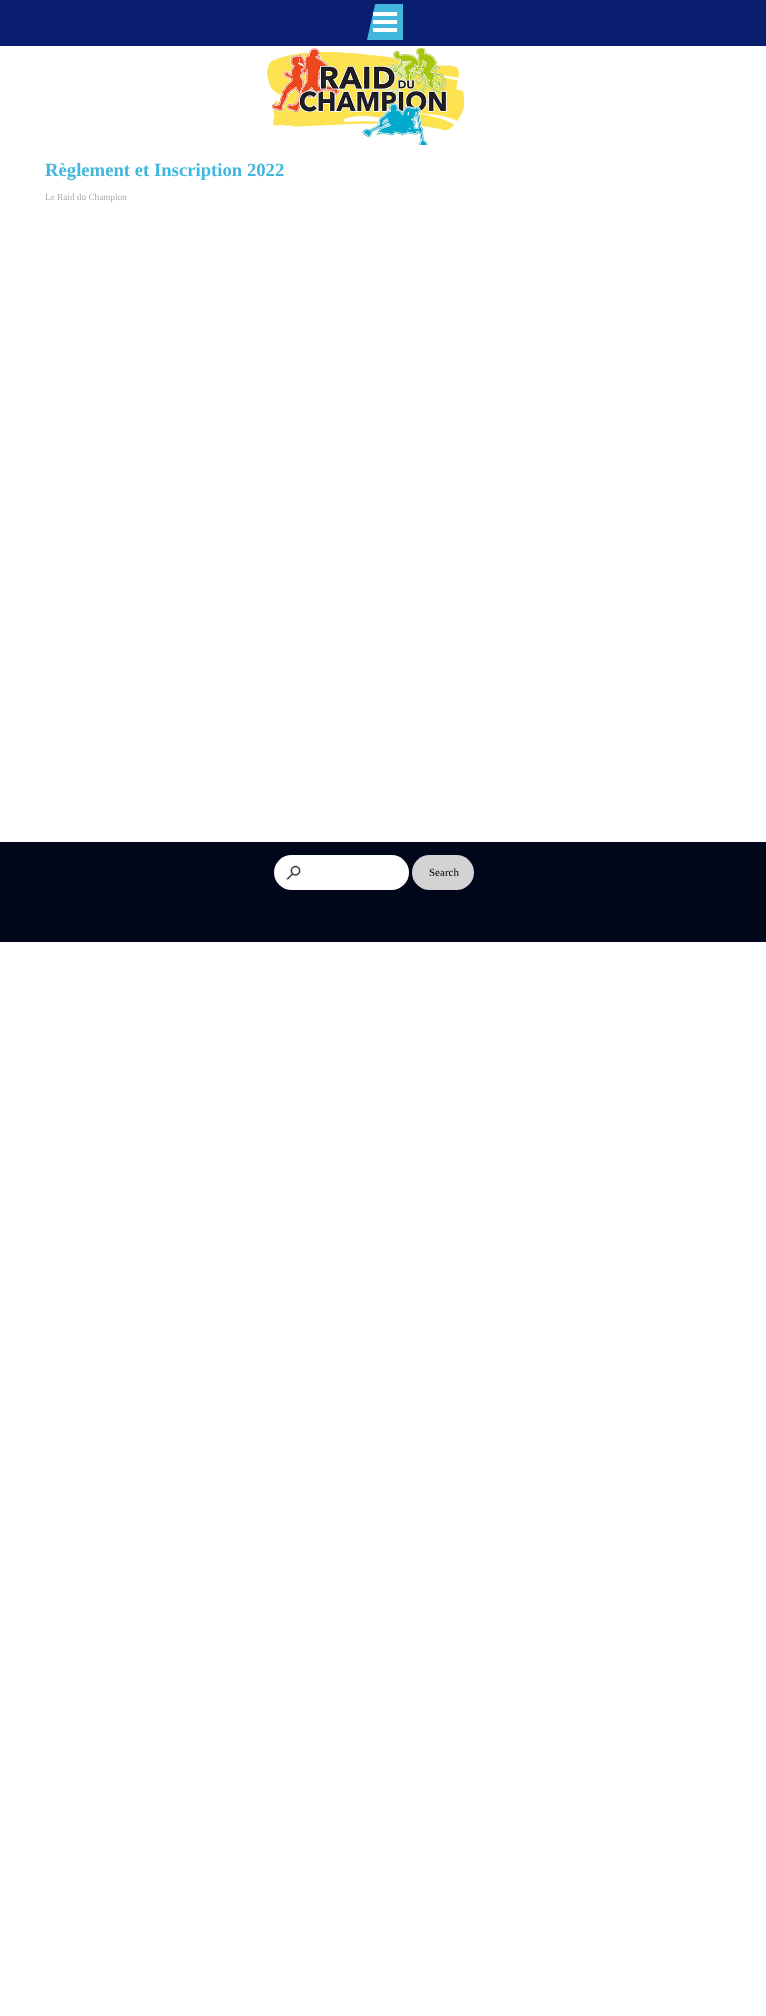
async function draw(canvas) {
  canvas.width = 766
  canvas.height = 2016
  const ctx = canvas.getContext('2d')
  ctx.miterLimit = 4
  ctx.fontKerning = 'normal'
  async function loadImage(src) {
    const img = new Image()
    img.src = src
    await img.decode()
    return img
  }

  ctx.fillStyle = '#fff'
  ctx.fillRect(0, 0, 766, 2016)
  ctx.fillStyle = '#091e6e'
  ctx.fillRect(0, 0, 766, 46)
  ctx.drawImage(await loadImage('image0.png'), 367, 4, 36, 36)
  ctx.fillStyle = '#fff'
  ctx.fillRect(373, 12, 24, 4)
  ctx.fillRect(373, 20, 24, 4)
  ctx.fillRect(373, 28, 24, 4)
  ctx.drawImage(await loadImage('image1.png'), 267, 48, 197, 97)
  ctx.font = 'bold 18.7px Liberation Serif'
  ctx.fillStyle = '#42b7dd'
  ctx.fillText('Règlement et Inscription 2022', 45, 176)
  ctx.font = '9.25px Liberation Serif'
  ctx.fillStyle = '#a9a9a9'
  ctx.fillText('Le Raid du Champion', 45, 200)
  ctx.fillStyle = '#00071a'
  ctx.fillRect(0, 842, 766, 100)
  ctx.fillStyle = '#fff'
  ctx.beginPath()
  ctx.roundRect(274, 855, 135, 35, 17.5)
  ctx.fill()
  ctx.drawImage(await loadImage('image2.png'), 286, 865, 15, 15)
  ctx.fillStyle = '#d3d3d3'
  ctx.beginPath()
  ctx.roundRect(412, 855, 62, 35, 17.5)
  ctx.fill()
  ctx.font = '11px Liberation Serif'
  ctx.fillStyle = '#000'
  ctx.fillText('Search', 429, 876)
}

draw(document.querySelector('canvas'))
